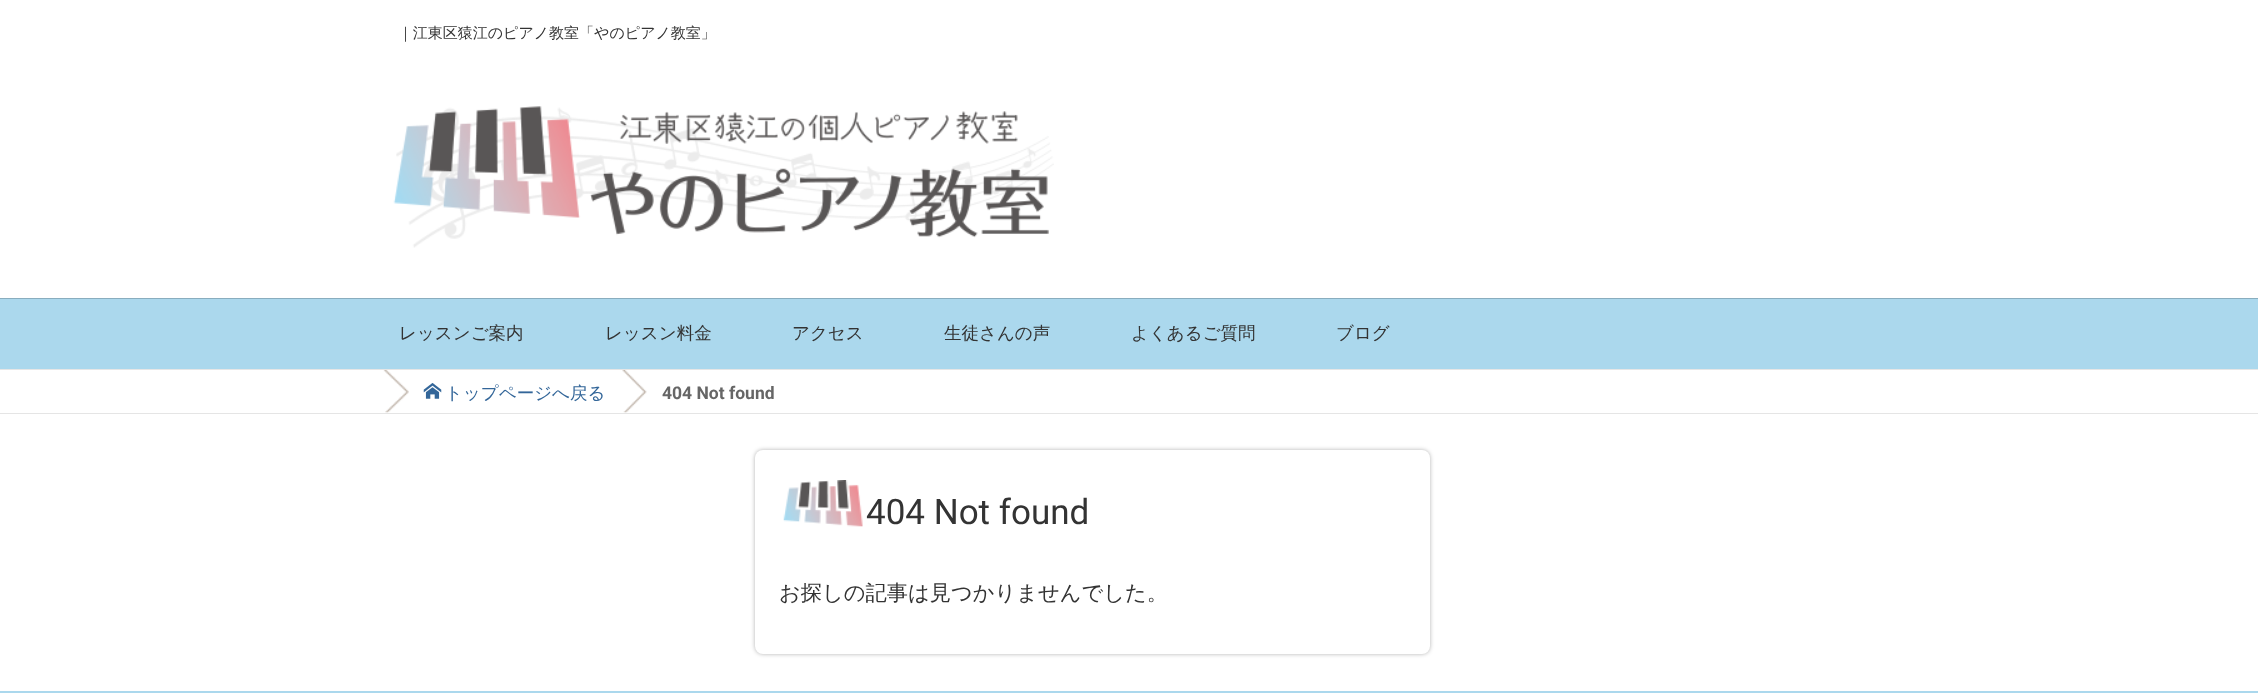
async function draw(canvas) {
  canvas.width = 2258
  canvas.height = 693
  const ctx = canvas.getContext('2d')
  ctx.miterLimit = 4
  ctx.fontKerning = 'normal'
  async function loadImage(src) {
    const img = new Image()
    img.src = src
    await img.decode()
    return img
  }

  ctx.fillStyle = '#fff'
  ctx.fillRect(0, 0, 2258, 693)
  ctx.font = '500 15px WenQuanYi Zen Hei'
  ctx.fillStyle = '#333'
  ctx.fillText('｜江東区猿江のピアノ教室「やのピアノ教室」', 398, 38)
  ctx.drawImage(await loadImage('image0.png'), 393, 106, 661, 142)
  ctx.fillStyle = '#abd8ed'
  ctx.fillRect(0, 299, 2258, 70)
  ctx.fillStyle = '#89adbe'
  ctx.fillRect(0, 298, 2258, 1)
  ctx.font = '500 17.5px WenQuanYi Zen Hei'
  ctx.fillStyle = '#333'
  ctx.fillText('レッスンご案内', 399, 339)
  ctx.fillText('レッスン料金', 605, 339)
  ctx.fillText('アクセス', 792, 339)
  ctx.fillText('生徒さんの声', 944, 339)
  ctx.fillText('よくあるご質問', 1131, 339)
  ctx.fillText('ブログ', 1336, 339)
  ctx.fillStyle = '#0000001a'
  ctx.filter = 'blur(0.5px)'
  ctx.beginPath()
  ctx.rect(0, 370, 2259, 44)
  ctx.fill()
  ctx.filter = 'none'
  ctx.fillStyle = '#fff'
  ctx.fillRect(0, 370, 2258, 43)
  ctx.fillStyle = '#e6e6e6'
  ctx.fillRect(0, 369, 2258, 1)
  ctx.drawImage(await loadImage('image1.png'), 383, 370, 26, 43)
  ctx.drawImage(await loadImage('image2.png'), 423, 383, 19, 16)
  ctx.fillStyle = '#369'
  ctx.fillText('トップページへ戻る', 445, 399)
  ctx.drawImage(await loadImage('image3.png'), 622, 370, 25, 43)
  ctx.font = 'bold 17.5px Roboto'
  ctx.fillStyle = '#666'
  ctx.fillText('404 Not found', 662, 399)
  ctx.fillStyle = '#0000004d'
  ctx.filter = 'blur(2px)'
  ctx.beginPath()
  ctx.roundRect(755, 450, 675, 204, 8)
  ctx.fill()
  ctx.filter = 'none'
  ctx.fillStyle = '#fff'
  ctx.beginPath()
  ctx.roundRect(755, 450, 675, 204, 8)
  ctx.fill()
  ctx.drawImage(await loadImage('image4.png'), 783, 480, 80, 47)
  ctx.font = '35px Roboto'
  ctx.fillStyle = '#333'
  ctx.fillText('404 Not found', 866, 524)
  ctx.font = '500 21.25px WenQuanYi Zen Hei'
  ctx.fillText('お探しの記事は見つかりませんでした。', 779, 600)
  ctx.fillStyle = '#abd8ed'
  ctx.fillRect(0, 691, 2258, 2)
}

draw(document.querySelector('canvas'))
